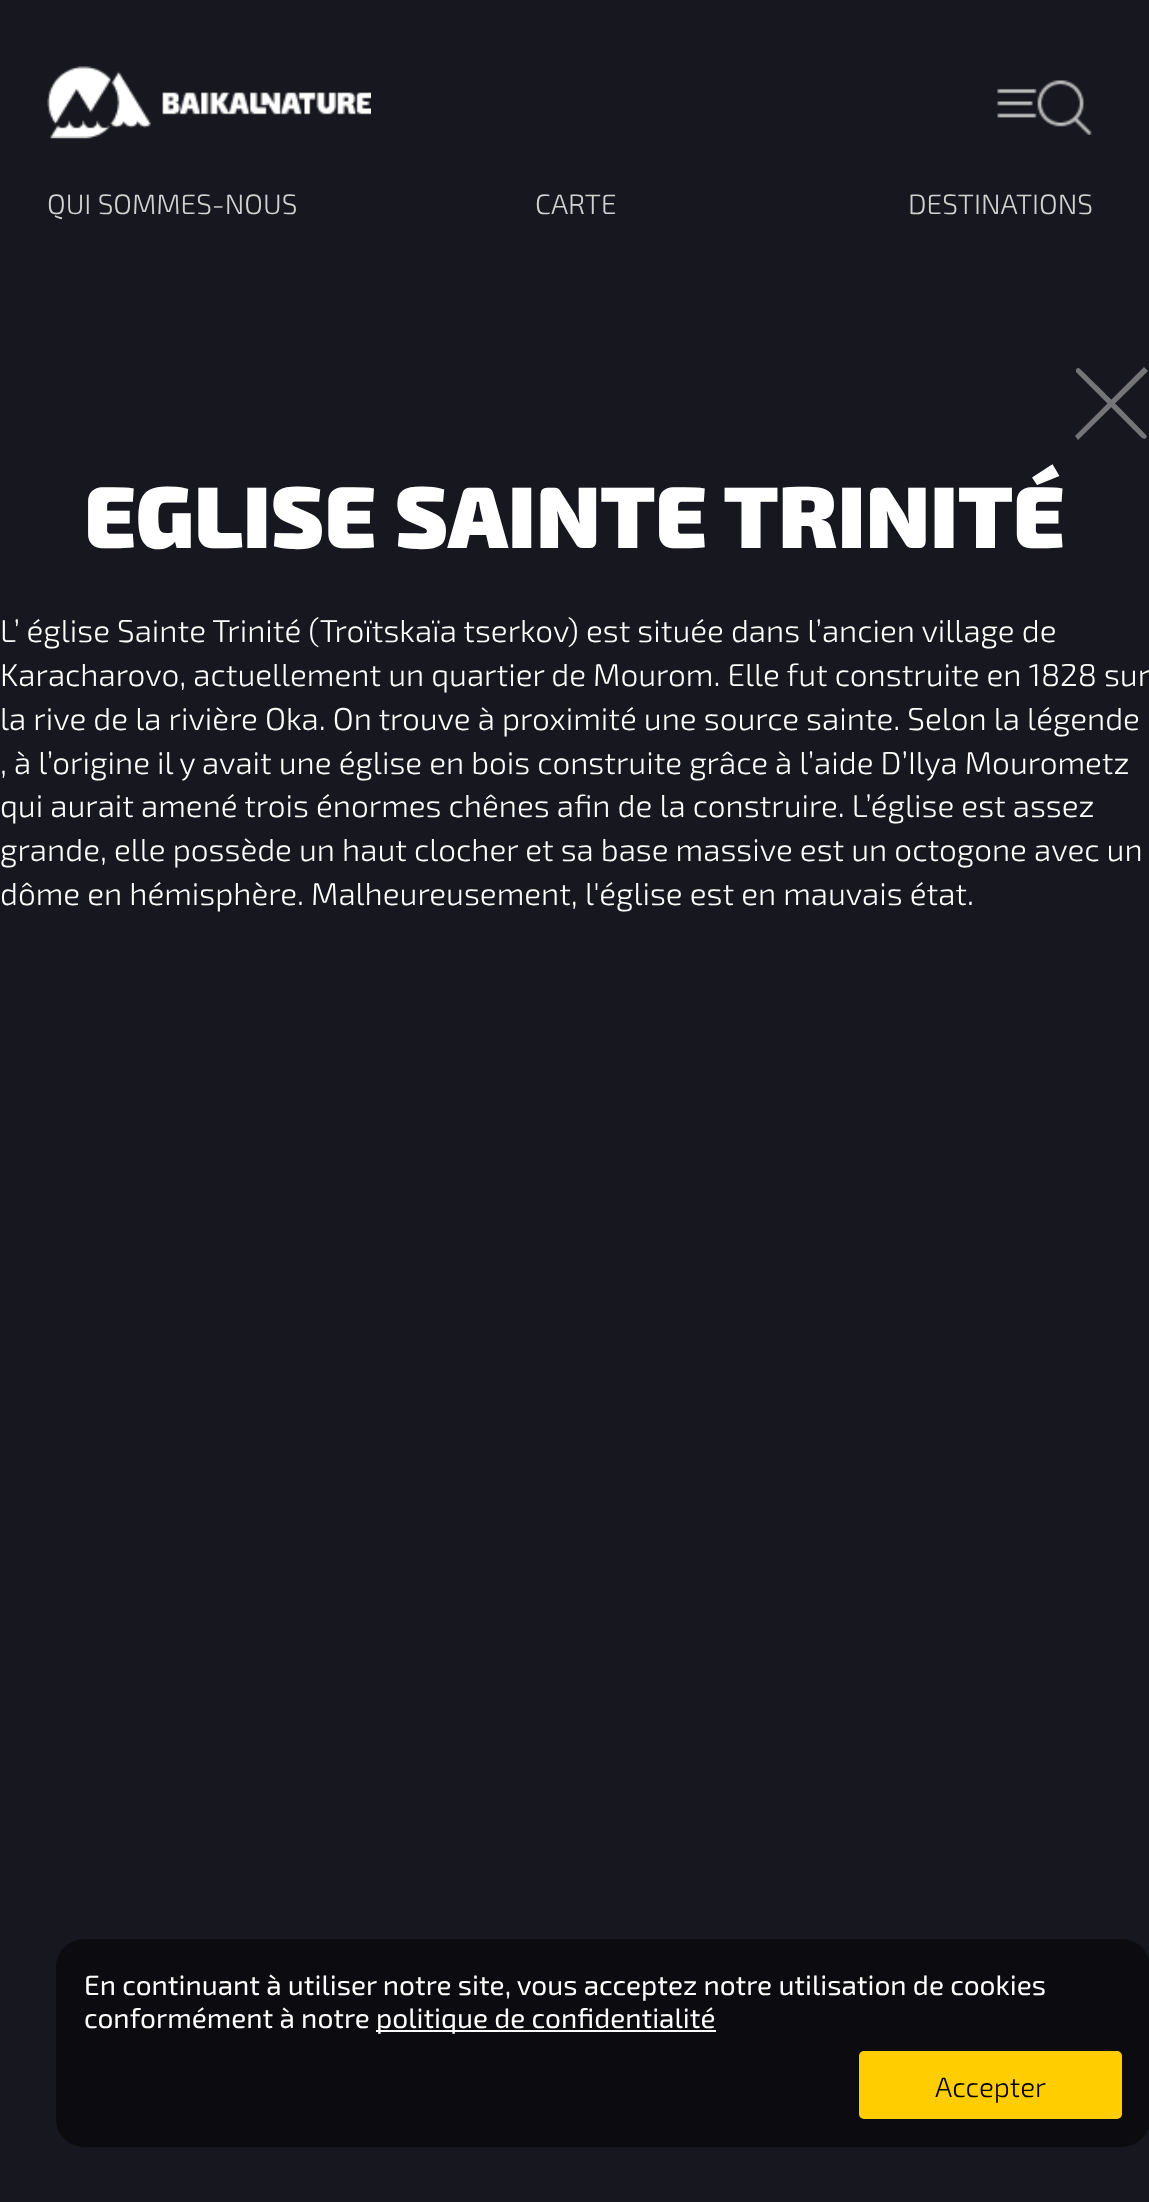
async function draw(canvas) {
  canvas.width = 1149
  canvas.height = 2202
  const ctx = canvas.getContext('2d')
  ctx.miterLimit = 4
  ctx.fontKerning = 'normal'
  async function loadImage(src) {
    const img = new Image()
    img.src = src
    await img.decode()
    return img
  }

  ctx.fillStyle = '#17171f'
  ctx.fillRect(0, 0, 1149, 2202)
  ctx.drawImage(await loadImage('image0.png'), 47, 66, 324, 73)
  ctx.drawImage(await loadImage('image1.png'), 997, 80, 95, 55)
  ctx.font = '300 28px "Exo 2"'
  ctx.fillStyle = '#d1d1d2'
  ctx.fillText('QUI SOMMES-NOUS', 47, 214)
  ctx.fillText('CARTE', 535, 214)
  ctx.fillText('DESTINATIONS', 908, 214)
  ctx.fillStyle = '#747479'
  ctx.beginPath()
  ctx.moveTo(1080, 369)
  ctx.bezierCurveTo(1087, 375, 1146, 434, 1147, 436)
  ctx.bezierCurveTo(1147, 437, 1146, 438, 1145, 439)
  ctx.lineTo(1142, 438)
  ctx.lineTo(1131, 427)
  ctx.lineTo(1076, 372)
  ctx.lineTo(1076, 370)
  ctx.bezierCurveTo(1076, 368, 1079, 367, 1080, 369)
  ctx.closePath()
  ctx.fill()
  ctx.beginPath()
  ctx.moveTo(1075, 436)
  ctx.lineTo(1144, 367)
  ctx.lineTo(1148, 371)
  ctx.lineTo(1078, 440)
  ctx.closePath()
  ctx.fill()
  ctx.font = '900 87.5px "Exo 2"'
  ctx.fillStyle = '#fff'
  ctx.fillText('EGLISE SAINTE TRINITÉ', 84, 548)
  ctx.font = '300 31.5px "Exo 2"'
  ctx.fillText('L’ église Sainte Trinité (Troïtskaïa tserkov) est située dans l’ancien village de', 0, 642)
  ctx.fillText('Karacharovo, actuellement un quartier de Mourom. Elle fut construite en 1828 sur', 0, 686)
  ctx.fillText('la rive de la rivière Oka. On trouve à proximité une source sainte. Selon la légende', 0, 730)
  ctx.fillText(', à l’origine il y avait une église en bois construite grâce à l’aide D’Ilya Mourometz', 0, 774)
  ctx.fillText('qui aurait amené trois énormes chênes afin de la construire. L’église est assez', 0, 817)
  ctx.fillText('grande, elle possède un haut clocher et sa base massive est un octogone avec un', 0, 861)
  ctx.fillText('dôme en hémisphère. Malheureusement, l\'église est en mauvais état.', 0, 905)
  ctx.fillStyle = '#0c0c10'
  ctx.beginPath()
  ctx.roundRect(56, 1939, 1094, 208, 28)
  ctx.fill()
  ctx.font = '28px "Exo 2"'
  ctx.fillStyle = '#fff'
  ctx.fillText('En continuant à utiliser notre site, vous acceptez notre utilisation de cookies', 84, 1995)
  ctx.fillText('conformément à notre', 84, 2028)
  ctx.fillRect(376, 2030, 340, 2)
  ctx.fillText('politique de confidentialité', 376, 2028)
  ctx.fillStyle = '#ffcd00'
  ctx.beginPath()
  ctx.roundRect(859, 2051, 263, 68, 5)
  ctx.fill()
  ctx.font = '300 28px "Exo 2"'
  ctx.fillStyle = '#000'
  ctx.fillText('Accepter', 935, 2097)
}

draw(document.querySelector('canvas'))
